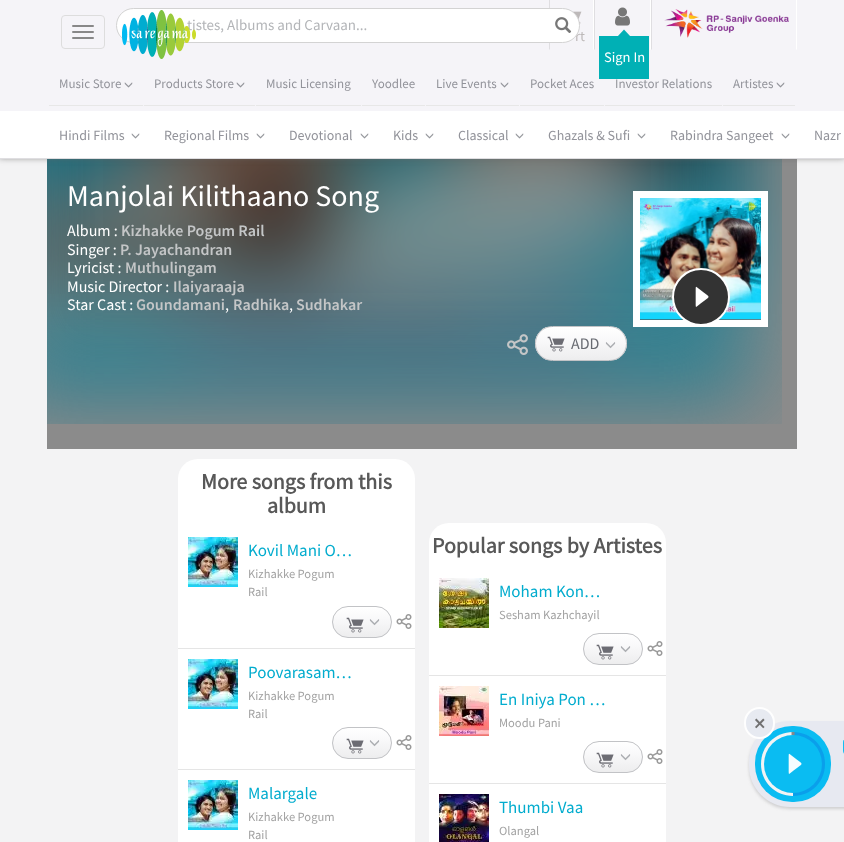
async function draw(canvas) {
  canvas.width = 844
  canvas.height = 842
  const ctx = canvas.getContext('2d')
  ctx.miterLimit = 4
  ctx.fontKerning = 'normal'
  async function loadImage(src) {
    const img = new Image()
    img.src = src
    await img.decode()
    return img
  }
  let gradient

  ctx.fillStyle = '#f3f3f4'
  ctx.fillRect(0, 0, 844, 842)
  ctx.fillStyle = '#8b8b8b'
  ctx.fillRect(47, 159, 750, 290)
  ctx.drawImage(await loadImage('image7.png'), 47, 159, 735, 265)
  ctx.fillStyle = '#666'
  ctx.filter = 'blur(3.5px)'
  ctx.beginPath()
  ctx.rect(-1, -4, 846, 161)
  ctx.fill()
  ctx.filter = 'none'
  ctx.fillStyle = '#f5f4f8'
  ctx.fillRect(0, 0, 844, 111)
  ctx.beginPath()
  ctx.roundRect(61.5, 15.5, 43, 33, 3.5)
  ctx.strokeStyle = '#ddd'
  ctx.stroke()
  ctx.fillStyle = '#888'
  ctx.beginPath()
  ctx.roundRect(72, 25, 22, 2, 1)
  ctx.fill()
  ctx.beginPath()
  ctx.roundRect(72, 31, 22, 2, 1)
  ctx.fill()
  ctx.beginPath()
  ctx.roundRect(72, 37, 22, 2, 1)
  ctx.fill()
  ctx.fillStyle = '#dfdee1'
  ctx.beginPath()
  ctx.moveTo(549, 50)
  ctx.lineTo(549, 0)
  ctx.lineTo(550, 0)
  ctx.lineTo(550, 49)
  ctx.closePath()
  ctx.fill()
  ctx.drawImage(await loadImage('image2.png'), 572, 11, 10, 13)
  ctx.font = '14.5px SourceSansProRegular'
  ctx.fillStyle = '#bdb9b9'
  ctx.fillText('rt', 575, 41)
  ctx.fillStyle = '#fff'
  ctx.beginPath()
  ctx.roundRect(116.5, 8.5, 463, 34, 17)
  ctx.fill()
  ctx.strokeStyle = '#d3d3d3'
  ctx.stroke()
  ctx.font = '15px SourceSansProRegular'
  ctx.fillStyle = '#b3b5b8'
  ctx.fillText('tistes, Albums and Carvaan...', 187, 30)
  ctx.drawImage(await loadImage('image0.png'), 122, 10, 74, 49)
  ctx.drawImage(await loadImage('image1.png'), 555, 17, 17, 16)
  ctx.fillStyle = '#fff'
  ctx.beginPath()
  ctx.moveTo(594, 0)
  ctx.lineTo(594, 50)
  ctx.lineTo(593, 49)
  ctx.lineTo(593, 0)
  ctx.closePath()
  ctx.fill()
  ctx.beginPath()
  ctx.moveTo(797, 0)
  ctx.lineTo(797, 50)
  ctx.lineTo(796, 49)
  ctx.lineTo(796, 0)
  ctx.closePath()
  ctx.fill()
  ctx.fillStyle = '#dfdee1'
  ctx.beginPath()
  ctx.moveTo(651, 50)
  ctx.lineTo(651, 0)
  ctx.lineTo(652, 0)
  ctx.lineTo(652, 49)
  ctx.closePath()
  ctx.fill()
  ctx.drawImage(await loadImage('image3.png'), 664, 9, 125, 29)
  ctx.fillStyle = '#fff'
  ctx.beginPath()
  ctx.moveTo(651, 0)
  ctx.lineTo(651, 50)
  ctx.lineTo(650, 49)
  ctx.lineTo(650, 0)
  ctx.closePath()
  ctx.fill()
  ctx.fillStyle = '#dfdee1'
  ctx.beginPath()
  ctx.moveTo(594, 50)
  ctx.lineTo(594, 0)
  ctx.lineTo(595, 0)
  ctx.lineTo(595, 49)
  ctx.closePath()
  ctx.fill()
  ctx.drawImage(await loadImage('image4.png'), 615, 7, 15, 19)
  ctx.font = '13px SourceSansProRegular'
  ctx.fillStyle = '#92939a'
  ctx.fillText('Investor Relations', 615, 88)
  ctx.fillStyle = '#00b0b5'
  ctx.fillRect(599, 36, 50, 43)
  ctx.beginPath()
  ctx.moveTo(624, 29.5)
  ctx.lineTo(631, 37)
  ctx.lineTo(624, 44)
  ctx.lineTo(617, 37)
  ctx.closePath()
  ctx.fill()
  ctx.font = '14.5px SourceSansProRegular'
  ctx.fillStyle = '#fff'
  ctx.fillText('Sign In', 604, 62)
  ctx.fillStyle = '#e7e7e7'
  ctx.fillRect(49, 105, 94, 1)
  ctx.font = '13px SourceSansProRegular'
  ctx.fillStyle = '#92939a'
  ctx.fillText('Music Store', 59, 88)
  ctx.drawImage(await loadImage('image5.png'), 124, 82, 9, 6)
  ctx.fillStyle = '#e7e7e7'
  ctx.fillRect(144, 105, 111, 1)
  ctx.fillStyle = '#92939a'
  ctx.fillText('Products Store', 154, 88)
  ctx.drawImage(await loadImage('image5.png'), 236, 82, 9, 6)
  ctx.fillStyle = '#e7e7e7'
  ctx.fillRect(256, 105, 105, 1)
  ctx.fillStyle = '#92939a'
  ctx.fillText('Music Licensing', 266, 88)
  ctx.fillStyle = '#e7e7e7'
  ctx.fillRect(362, 105, 63, 1)
  ctx.fillStyle = '#92939a'
  ctx.fillText('Yoodlee', 372, 88)
  ctx.fillStyle = '#e7e7e7'
  ctx.fillRect(426, 105, 93, 1)
  ctx.fillStyle = '#92939a'
  ctx.fillText('Live Events', 436, 88)
  ctx.drawImage(await loadImage('image5.png'), 500, 82, 9, 6)
  ctx.fillStyle = '#e7e7e7'
  ctx.fillRect(520, 105, 84, 1)
  ctx.fillStyle = '#92939a'
  ctx.fillText('Pocket Aces', 530, 88)
  ctx.fillStyle = '#e7e7e7'
  ctx.fillRect(605, 105, 117, 1)
  ctx.fillRect(723, 105, 72, 1)
  ctx.fillStyle = '#92939a'
  ctx.fillText('Artistes', 733, 88)
  ctx.drawImage(await loadImage('image5.png'), 776, 82, 9, 6)
  ctx.fillStyle = '#fff'
  ctx.fillRect(0, 111, 844, 47)
  ctx.fillStyle = '#dfdee1'
  ctx.fillRect(0, 158, 844, 1)
  ctx.font = '14px SourceSansProRegular'
  ctx.fillStyle = '#92939a'
  ctx.fillText('Hindi Films', 59, 140)
  ctx.drawImage(await loadImage('image6.png'), 131, 133, 9, 6)
  ctx.fillText('Regional Films', 164, 140)
  ctx.drawImage(await loadImage('image6.png'), 256, 133, 9, 6)
  ctx.fillText('Devotional', 289, 140)
  ctx.drawImage(await loadImage('image6.png'), 360, 133, 9, 6)
  ctx.fillText('Kids', 393, 140)
  ctx.drawImage(await loadImage('image6.png'), 425, 133, 9, 6)
  ctx.fillText('Classical', 458, 140)
  ctx.drawImage(await loadImage('image6.png'), 515, 133, 9, 6)
  ctx.fillText('Ghazals & Sufi', 548, 140)
  ctx.drawImage(await loadImage('image6.png'), 637, 133, 9, 6)
  ctx.fillText('Rabindra Sangeet', 670, 140)
  ctx.drawImage(await loadImage('image6.png'), 781, 133, 9, 6)
  ctx.fillText('Nazr', 814, 140)
  ctx.font = '30px SourceSansProRegular'
  ctx.fillStyle = '#fff'
  ctx.fillText('Manjolai Kilithaano Song', 67, 206)
  ctx.font = '16px SourceSansProRegular'
  ctx.fillText('Album :', 67, 236)
  ctx.font = '600 16px Source Sans Pro'
  ctx.fillStyle = '#c4c6c7'
  ctx.fillText('Kizhakke Pogum Rail', 121, 236)
  ctx.font = '16px SourceSansProRegular'
  ctx.fillStyle = '#fff'
  ctx.fillText('Singer :', 67, 255)
  ctx.font = '600 16px Source Sans Pro'
  ctx.fillStyle = '#c4c6c7'
  ctx.fillText('P. Jayachandran', 120, 255)
  ctx.font = '16px SourceSansProRegular'
  ctx.fillStyle = '#fff'
  ctx.fillText('Lyricist :', 67, 273)
  ctx.font = '600 16px Source Sans Pro'
  ctx.fillStyle = '#c4c6c7'
  ctx.fillText('Muthulingam', 125, 273)
  ctx.font = '16px SourceSansProRegular'
  ctx.fillStyle = '#fff'
  ctx.fillText('Music Director :', 67, 292)
  ctx.font = '600 16px Source Sans Pro'
  ctx.fillStyle = '#c4c6c7'
  ctx.fillText('Ilaiyaraaja', 173, 292)
  ctx.font = '16px SourceSansProRegular'
  ctx.fillStyle = '#fff'
  ctx.fillText('Star Cast :', 67, 310)
  ctx.font = '600 16px Source Sans Pro'
  ctx.fillStyle = '#c4c6c7'
  ctx.fillText('Goundamani', 136, 310)
  ctx.font = '16px SourceSansProRegular'
  ctx.fillStyle = '#fff'
  ctx.fillText(',', 225, 310)
  ctx.font = '600 16px Source Sans Pro'
  ctx.fillStyle = '#c4c6c7'
  ctx.fillText('Radhika', 233, 310)
  ctx.font = '16px SourceSansProRegular'
  ctx.fillStyle = '#fff'
  ctx.fillText(',', 289, 310)
  ctx.font = '600 16px Source Sans Pro'
  ctx.fillStyle = '#c4c6c7'
  ctx.fillText('Sudhakar', 296, 310)
  ctx.drawImage(await loadImage('image8.png'), 507, 334, 21, 21)
  ctx.save()
  ctx.beginPath()
  ctx.roundRect(535, 326, 92, 35, 17.5)
  ctx.clip()
  gradient = ctx.createLinearGradient(581, 327, 581, 360)
  gradient.addColorStop(0, '#fff')
  gradient.addColorStop(0.38, '#f9f9fa')
  gradient.addColorStop(1, '#ededee')
  ctx.fillStyle = gradient
  ctx.fillRect(535, 327, 92, 33)
  ctx.restore()
  ctx.beginPath()
  ctx.roundRect(535.5, 326.5, 91, 34, 17)
  ctx.strokeStyle = '#c2c3c6'
  ctx.stroke()
  ctx.drawImage(await loadImage('image9.png'), 547, 336, 18, 16)
  ctx.font = '16px SourceSansProRegular'
  ctx.fillStyle = '#676a71'
  ctx.fillText('ADD', 571, 349)
  ctx.drawImage(await loadImage('image10.png'), 605, 342, 11, 7)
  ctx.strokeStyle = '#fff'
  ctx.lineWidth = 7
  ctx.strokeRect(636.5, 194.5, 128, 129)
  ctx.drawImage(await loadImage('image11.png'), 640, 198, 121, 121)
  ctx.fillStyle = '#333'
  ctx.beginPath()
  ctx.arc(701, 297, 28, 0, 2 * Math.PI)
  ctx.fill()
  ctx.lineWidth = 2
  ctx.stroke()
  ctx.drawImage(await loadImage('image12.png'), 695, 286, 14, 21)
  ctx.fillStyle = '#fff'
  ctx.beginPath()
  ctx.roundRect(178, 459, 237, 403, 20)
  ctx.fill()
  ctx.font = 'bold 22px SourceSansProRegular'
  ctx.fillStyle = '#585858'
  ctx.fillText('More songs from this', 201, 489)
  ctx.fillText('album', 267, 513)
  ctx.fillStyle = '#e5e5e5'
  ctx.fillRect(178, 648, 237, 1)
  ctx.drawImage(await loadImage('image13.png'), 188, 537, 50, 50)
  ctx.font = '17px SourceSansProRegular'
  ctx.fillStyle = '#02acce'
  ctx.fillText('Kovil Mani O…', 248, 556)
  ctx.font = '12.5px SourceSansProRegular'
  ctx.fillStyle = '#a2a2a2'
  ctx.fillText('Kizhakke Pogum', 248, 578)
  ctx.fillText('Rail', 248, 596)
  ctx.save()
  ctx.beginPath()
  ctx.roundRect(332, 606, 60, 32, 16)
  ctx.clip()
  gradient = ctx.createLinearGradient(362, 607, 362, 637)
  gradient.addColorStop(0, '#fff')
  gradient.addColorStop(0.38, '#f9f9fa')
  gradient.addColorStop(1, '#ededee')
  ctx.fillStyle = gradient
  ctx.fillRect(332, 607, 60, 30)
  ctx.restore()
  ctx.beginPath()
  ctx.roundRect(332.5, 606.5, 59, 31, 15.5)
  ctx.strokeStyle = '#c2c3c6'
  ctx.lineWidth = 1
  ctx.stroke()
  ctx.drawImage(await loadImage('image14.png'), 346, 617, 18, 16)
  ctx.drawImage(await loadImage('image15.png'), 369, 619, 11, 7)
  ctx.drawImage(await loadImage('image16.png'), 396, 614, 16, 15)
  ctx.fillStyle = '#e5e5e5'
  ctx.fillRect(178, 769, 237, 1)
  ctx.drawImage(await loadImage('image13.png'), 188, 659, 50, 50)
  ctx.font = '17px SourceSansProRegular'
  ctx.fillStyle = '#02acce'
  ctx.fillText('Poovarasam…', 248, 678)
  ctx.font = '12.5px SourceSansProRegular'
  ctx.fillStyle = '#a2a2a2'
  ctx.fillText('Kizhakke Pogum', 248, 700)
  ctx.fillText('Rail', 248, 718)
  ctx.save()
  ctx.beginPath()
  ctx.roundRect(332, 727, 60, 32, 16)
  ctx.clip()
  gradient = ctx.createLinearGradient(362, 728, 362, 758)
  gradient.addColorStop(0, '#fff')
  gradient.addColorStop(0.38, '#f9f9fa')
  gradient.addColorStop(1, '#ededee')
  ctx.fillStyle = gradient
  ctx.fillRect(332, 728, 60, 30)
  ctx.restore()
  ctx.beginPath()
  ctx.roundRect(332.5, 727.5, 59, 31, 15.5)
  ctx.stroke()
  ctx.drawImage(await loadImage('image14.png'), 346, 738, 18, 16)
  ctx.drawImage(await loadImage('image15.png'), 369, 740, 11, 7)
  ctx.drawImage(await loadImage('image16.png'), 396, 735, 16, 15)
  ctx.drawImage(await loadImage('image13.png'), 188, 780, 50, 50)
  ctx.font = '17px SourceSansProRegular'
  ctx.fillStyle = '#02acce'
  ctx.fillText('Malargale', 248, 799)
  ctx.font = '12.5px SourceSansProRegular'
  ctx.fillStyle = '#a2a2a2'
  ctx.fillText('Kizhakke Pogum', 248, 821)
  ctx.fillText('Rail', 248, 839)
  ctx.fillStyle = '#fff'
  ctx.beginPath()
  ctx.roundRect(429, 523, 237, 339, 20)
  ctx.fill()
  ctx.font = 'bold 22px SourceSansProRegular'
  ctx.fillStyle = '#585858'
  ctx.fillText('Popular songs by Artistes', 432, 553)
  ctx.fillStyle = '#e5e5e5'
  ctx.fillRect(429, 675, 237, 1)
  ctx.drawImage(await loadImage('image17.png'), 439, 578, 50, 50)
  ctx.font = '17px SourceSansProRegular'
  ctx.fillStyle = '#02acce'
  ctx.fillText('Moham Kon…', 499, 597)
  ctx.font = '12.5px SourceSansProRegular'
  ctx.fillStyle = '#a2a2a2'
  ctx.fillText('Sesham Kazhchayil', 499, 619)
  ctx.save()
  ctx.beginPath()
  ctx.roundRect(583, 633, 60, 32, 16)
  ctx.clip()
  gradient = ctx.createLinearGradient(613, 634, 613, 664)
  gradient.addColorStop(0, '#fff')
  gradient.addColorStop(0.38, '#f9f9fa')
  gradient.addColorStop(1, '#ededee')
  ctx.fillStyle = gradient
  ctx.fillRect(583, 634, 60, 30)
  ctx.restore()
  ctx.beginPath()
  ctx.roundRect(583.5, 633.5, 59, 31, 15.5)
  ctx.stroke()
  ctx.drawImage(await loadImage('image14.png'), 596, 644, 18, 16)
  ctx.drawImage(await loadImage('image15.png'), 620, 646, 11, 7)
  ctx.drawImage(await loadImage('image16.png'), 647, 641, 16, 15)
  ctx.fillStyle = '#e5e5e5'
  ctx.fillRect(429, 783, 237, 1)
  ctx.drawImage(await loadImage('image18.png'), 439, 686, 50, 50)
  ctx.font = '17px SourceSansProRegular'
  ctx.fillStyle = '#02acce'
  ctx.fillText('En Iniya Pon …', 499, 705)
  ctx.font = '12.5px SourceSansProRegular'
  ctx.fillStyle = '#a2a2a2'
  ctx.fillText('Moodu Pani', 499, 727)
  ctx.save()
  ctx.beginPath()
  ctx.roundRect(583, 741, 60, 32, 16)
  ctx.clip()
  gradient = ctx.createLinearGradient(613, 742, 613, 772)
  gradient.addColorStop(0, '#fff')
  gradient.addColorStop(0.38, '#f9f9fa')
  gradient.addColorStop(1, '#ededee')
  ctx.fillStyle = gradient
  ctx.fillRect(583, 742, 60, 30)
  ctx.restore()
  ctx.beginPath()
  ctx.roundRect(583.5, 741.5, 59, 31, 15.5)
  ctx.stroke()
  ctx.drawImage(await loadImage('image14.png'), 596, 752, 18, 16)
  ctx.drawImage(await loadImage('image15.png'), 620, 754, 11, 7)
  ctx.drawImage(await loadImage('image16.png'), 647, 749, 16, 15)
  ctx.drawImage(await loadImage('image19.png'), 439, 794, 50, 48)
  ctx.font = '17px SourceSansProRegular'
  ctx.fillStyle = '#02acce'
  ctx.fillText('Thumbi Vaa', 499, 813)
  ctx.font = '12.5px SourceSansProRegular'
  ctx.fillStyle = '#a2a2a2'
  ctx.fillText('Olangal', 499, 835)
  ctx.fillStyle = '#cfcfd0'
  ctx.filter = 'blur(1.5px)'
  ctx.beginPath()
  ctx.roundRect(749, 723, 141, 86, 41)
  ctx.fill()
  ctx.filter = 'none'
  ctx.fillStyle = '#e7e9f1'
  ctx.beginPath()
  ctx.moveTo(790, 721)
  ctx.lineTo(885, 721)
  ctx.lineTo(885, 807)
  ctx.lineTo(790, 807)
  ctx.bezierCurveTo(767.5, 807, 749, 788.5, 749, 766)
  ctx.lineTo(749, 762)
  ctx.bezierCurveTo(749, 739.5, 767.5, 721, 790, 721)
  ctx.closePath()
  ctx.fill()
  ctx.fillStyle = '#0abcf2'
  ctx.beginPath()
  ctx.roundRect(755, 726, 76, 76, 37)
  ctx.fill()
  ctx.fillStyle = '#e7eaf1'
  ctx.beginPath()
  ctx.roundRect(745, 708, 29, 30, 14.5)
  ctx.fill()
  ctx.strokeStyle = '#fefefe'
  ctx.lineWidth = 2
  ctx.stroke()
  ctx.font = 'bold 22px SourceSansProRegular'
  ctx.fillStyle = '#717171'
  ctx.fillText('×', 754, 731)
  ctx.fillStyle = '#f3f3f4'
  ctx.beginPath()
  ctx.moveTo(761, 764)
  ctx.bezierCurveTo(761, 782, 775, 796, 793, 796)
  ctx.lineTo(793, 732)
  ctx.bezierCurveTo(775, 732, 761, 746, 761, 764)
  ctx.closePath()
  ctx.fill()
  ctx.fillStyle = '#0a9feb'
  ctx.beginPath()
  ctx.moveTo(793, 732)
  ctx.lineTo(793, 796)
  ctx.bezierCurveTo(811, 796, 825, 782, 825, 764)
  ctx.bezierCurveTo(825, 746, 811, 732, 793, 732)
  ctx.closePath()
  ctx.fill()
  ctx.fillStyle = '#0abcf2'
  ctx.beginPath()
  ctx.arc(793, 764, 29, 0, 2 * Math.PI)
  ctx.fill()
  ctx.fillStyle = '#878788'
  ctx.beginPath()
  ctx.moveTo(794.5, 732)
  ctx.lineTo(794.5, 735)
  ctx.lineTo(791.5, 735)
  ctx.lineTo(791.5, 732)
  ctx.closePath()
  ctx.fill()
  ctx.drawImage(await loadImage('image20.png'), 788, 753, 14, 21)
  ctx.fillStyle = '#13bef2'
  ctx.beginPath()
  ctx.roundRect(843, 737, 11, 19, 9.5)
  ctx.fill()
}

draw(document.querySelector('canvas'))
